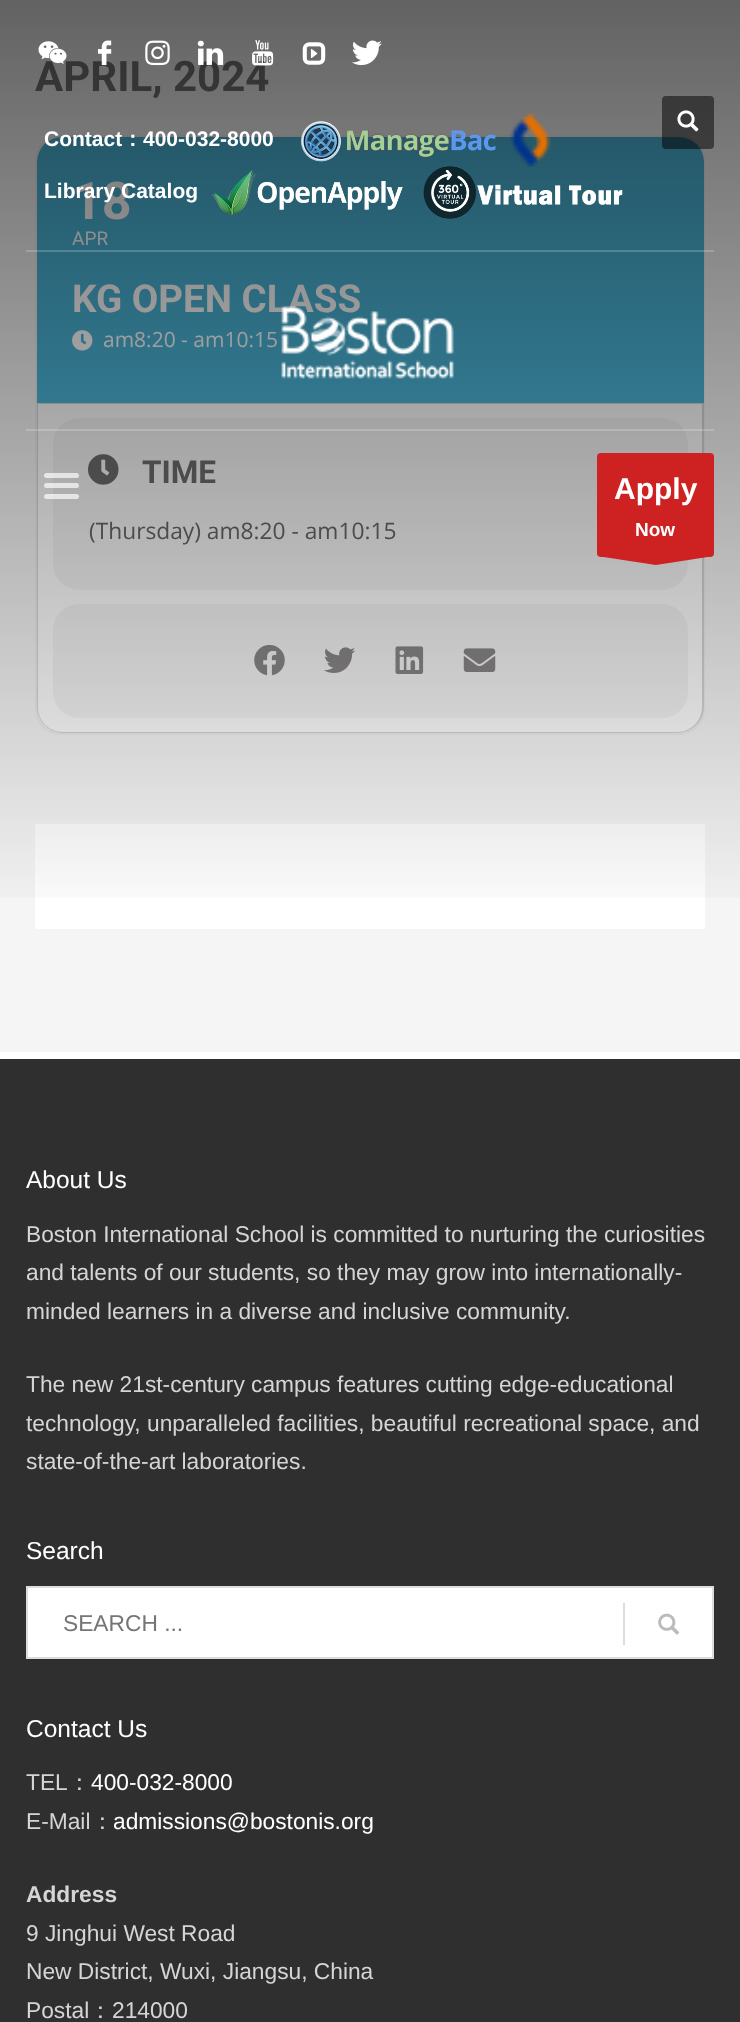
async function draw(canvas) {
  canvas.width = 740
  canvas.height = 2022
  const ctx = canvas.getContext('2d')
  ctx.miterLimit = 4
  ctx.fontKerning = 'normal'
  async function loadImage(src) {
    const img = new Image()
    img.src = src
    await img.decode()
    return img
  }
  let gradient

  ctx.fillStyle = '#f5f5f5'
  ctx.fillRect(0, 0, 740, 2022)
  ctx.font = 'bold 42px Roboto'
  ctx.fillStyle = '#757575'
  ctx.fillText('APRIL, 2024', 35, 91)
  ctx.beginPath()
  ctx.roundRect(36, 136, 668, 598, 25)
  ctx.strokeStyle = '#efeeee'
  ctx.lineWidth = 2
  ctx.stroke()
  ctx.fillStyle = '#d5d5d5'
  ctx.fillRect(37, 403, 667, 1)
  ctx.fillStyle = '#4bb5d8'
  ctx.beginPath()
  ctx.roundRect(37, 137, 667, 266, [25, 25, 0, 0])
  ctx.fill()
  ctx.font = 'bold 52px Roboto'
  ctx.fillStyle = '#fff'
  ctx.fillText('18', 72, 219)
  ctx.font = '19px Roboto'
  ctx.fillText('APR', 72, 245)
  ctx.font = 'bold 38.5px Roboto'
  ctx.fillText('KG OPEN CLASS', 72, 312)
  ctx.drawImage(await loadImage('image0.png'), 72, 330, 21, 21)
  ctx.font = '21px Open Sans'
  ctx.fillText('am8:20 - am10:15', 103, 347)
  ctx.save()
  ctx.beginPath()
  ctx.roundRect(37, 137, 667, 596, 25)
  ctx.clip()
  ctx.fillStyle = '#fdfdfd'
  ctx.beginPath()
  ctx.roundRect(37, 404, 667, 329, [0, 0, 26, 26])
  ctx.fill()
  ctx.restore()
  ctx.fillStyle = '#d5d5d5'
  ctx.beginPath()
  ctx.moveTo(37, 404)
  ctx.lineTo(704, 404)
  ctx.lineTo(704, 707)
  ctx.bezierCurveTo(704, 721, 692, 733, 677, 733)
  ctx.lineTo(63, 733)
  ctx.bezierCurveTo(49, 733, 37, 721, 37, 707)
  ctx.closePath()
  ctx.moveTo(38, 404)
  ctx.lineTo(702, 404)
  ctx.lineTo(702, 707)
  ctx.bezierCurveTo(702, 721, 691, 732, 677, 732)
  ctx.lineTo(63, 732)
  ctx.bezierCurveTo(49, 732, 38, 721, 38, 707)
  ctx.closePath()
  ctx.fill('evenodd')
  ctx.fillStyle = '#f3f3f3'
  ctx.beginPath()
  ctx.roundRect(53, 418, 635, 172, 26)
  ctx.fill()
  ctx.drawImage(await loadImage('image1.png'), 88, 454, 31, 31)
  ctx.font = 'bold 31.5px Roboto'
  ctx.fillStyle = '#6b6b6b'
  ctx.fillText('TIME', 142, 483)
  ctx.font = '22.75px Open Sans'
  ctx.fillStyle = '#656565'
  ctx.fillText('(Thursday) am8:20 - am10:15', 89, 539)
  ctx.fillStyle = '#f3f3f3'
  ctx.beginPath()
  ctx.roundRect(53, 604, 635, 114, 26)
  ctx.fill()
  ctx.drawImage(await loadImage('image2.png'), 254, 644, 31, 32)
  ctx.drawImage(await loadImage('image3.png'), 324, 647, 31, 26)
  ctx.drawImage(await loadImage('image4.png'), 395, 646, 29, 28)
  ctx.drawImage(await loadImage('image5.png'), 463, 648, 33, 24)
  ctx.fillStyle = '#fff'
  ctx.fillRect(35, 824, 670, 105)
  gradient = ctx.createLinearGradient(370, 0, 370, 931)
  gradient.addColorStop(0, '#00000099')
  gradient.addColorStop(1, '#00000000')
  ctx.fillStyle = gradient
  ctx.fillRect(0, 0, 740, 898)
  ctx.fillStyle = '#00000080'
  ctx.beginPath()
  ctx.roundRect(662, 96, 52, 53, 4)
  ctx.fill()
  ctx.drawImage(await loadImage('image6.png'), 677, 110, 22, 22)
  ctx.drawImage(await loadImage('image7.png'), 38, 41, 29, 23)
  ctx.drawImage(await loadImage('image8.png'), 98, 40, 14, 26)
  ctx.drawImage(await loadImage('image9.png'), 145, 40, 25, 26)
  ctx.drawImage(await loadImage('image10.png'), 197, 40, 27, 25)
  ctx.drawImage(await loadImage('image11.png'), 252, 40, 22, 26)
  ctx.drawImage(await loadImage('image12.png'), 302, 42, 24, 23)
  ctx.drawImage(await loadImage('image13.png'), 352, 40, 30, 26)
  ctx.font = 'bold 21px Liberation Sans'
  ctx.fillStyle = '#fff'
  ctx.fillText('Contact', 44, 146)
  ctx.font = 'bold 21px WenQuanYi Zen Hei'
  ctx.fillText('：', 122, 146)
  ctx.font = 'bold 21px Liberation Sans'
  ctx.fillText('400-032-8000', 143, 146)
  ctx.drawImage(await loadImage('image14.png'), 300, 121, 196, 41)
  ctx.drawImage(await loadImage('image15.png'), 509, 113, 42, 54)
  ctx.fillText('Library Catalog', 44, 198)
  ctx.drawImage(await loadImage('image16.png'), 211, 170, 192, 45)
  ctx.drawImage(await loadImage('image17.png'), 423, 166, 200, 53)
  ctx.fillStyle = '#ffffff33'
  ctx.fillRect(26, 250, 688, 2)
  ctx.drawImage(await loadImage('image18.png'), 281, 305, 173, 74)
  ctx.fillRect(26, 429, 688, 2)
  ctx.fillStyle = '#ffffffad'
  ctx.beginPath()
  ctx.roundRect(44, 473, 35, 5, 2.5)
  ctx.fill()
  ctx.beginPath()
  ctx.roundRect(44, 483, 35, 5, 2.5)
  ctx.fill()
  ctx.beginPath()
  ctx.roundRect(44, 494, 35, 5, 2.5)
  ctx.fill()
  ctx.fillStyle = '#cd2122'
  ctx.beginPath()
  ctx.roundRect(597, 453, 117, 104, 4)
  ctx.fill()
  ctx.font = 'bold 30px Liberation Sans'
  ctx.fillStyle = '#fff'
  ctx.fillText('Apply', 614, 499)
  ctx.font = 'bold 19px Liberation Sans'
  ctx.fillText('Now', 635, 536)
  ctx.save()
  ctx.beginPath()
  ctx.rect(597, 557, 117, 8)
  ctx.clip()
  ctx.fillStyle = '#cd2122'
  ctx.beginPath()
  ctx.moveTo(714, 556)
  ctx.lineTo(656, 565)
  ctx.lineTo(597, 556)
  ctx.closePath()
  ctx.fill('evenodd')
  ctx.restore()
  ctx.fillStyle = '#2f2f2f'
  ctx.fillRect(0, 1059, 740, 963)
  ctx.fillStyle = '#fff'
  ctx.fillRect(0, 1052, 740, 7)
  ctx.font = '24.5px Liberation Sans'
  ctx.fillText('About Us', 26, 1188)
  ctx.font = '22.75px Liberation Sans'
  ctx.fillStyle = '#d5d5d5'
  ctx.fillText('Boston International School is committed to nurturing the curiosities', 26, 1242)
  ctx.fillText('and talents of our students, so they may grow into internationally-', 26, 1280)
  ctx.fillText('minded learners in a diverse and inclusive community.', 26, 1319)
  ctx.fillText('The new 21st-century campus features cutting edge-educational', 26, 1392)
  ctx.fillText('technology, unparalleled facilities, beautiful recreational space, and', 26, 1431)
  ctx.fillText('state-of-the-art laboratories.', 26, 1469)
  ctx.font = '24.5px Liberation Sans'
  ctx.fillStyle = '#fff'
  ctx.fillText('Search', 26, 1559)
  ctx.beginPath()
  ctx.rect(27, 1587, 686, 71)
  ctx.fill()
  ctx.strokeStyle = '#ddd'
  ctx.stroke()
  ctx.font = '22.75px Liberation Sans'
  ctx.fillStyle = '#757575'
  ctx.fillText('SEARCH ...', 63, 1631)
  ctx.fillStyle = '#ddd'
  ctx.fillRect(623, 1603, 2, 42)
  ctx.drawImage(await loadImage('image19.png'), 658, 1613, 22, 22)
  ctx.font = '24.5px Liberation Sans'
  ctx.fillStyle = '#fff'
  ctx.fillText('Contact Us', 26, 1737)
  ctx.font = '22.75px Liberation Sans'
  ctx.fillStyle = '#d5d5d5'
  ctx.fillText('TEL', 26, 1790)
  ctx.font = '500 22.75px WenQuanYi Zen Hei'
  ctx.fillText('：', 68, 1790)
  ctx.font = '22.75px Liberation Sans'
  ctx.fillStyle = '#fff'
  ctx.fillText('400-032-8000', 91, 1790)
  ctx.fillStyle = '#d5d5d5'
  ctx.fillText('E-Mail', 26, 1829)
  ctx.font = '500 22.75px WenQuanYi Zen Hei'
  ctx.fillText('：', 91, 1829)
  ctx.font = '22.75px Liberation Sans'
  ctx.fillStyle = '#fff'
  ctx.fillText('admissions@bostonis.org', 113, 1829)
  ctx.font = 'bold 22.75px Liberation Sans'
  ctx.fillStyle = '#d5d5d5'
  ctx.fillText('Address', 26, 1902)
  ctx.font = '22.75px Liberation Sans'
  ctx.fillText('9 Jinghui West Road', 26, 1941)
  ctx.fillText('New District, Wuxi, Jiangsu, China', 26, 1979)
  ctx.fillText('Postal', 26, 2018)
  ctx.font = '500 22.75px WenQuanYi Zen Hei'
  ctx.fillText('：', 89, 2018)
  ctx.font = '22.75px Liberation Sans'
  ctx.fillText('214000', 112, 2018)
}

draw(document.querySelector('canvas'))
